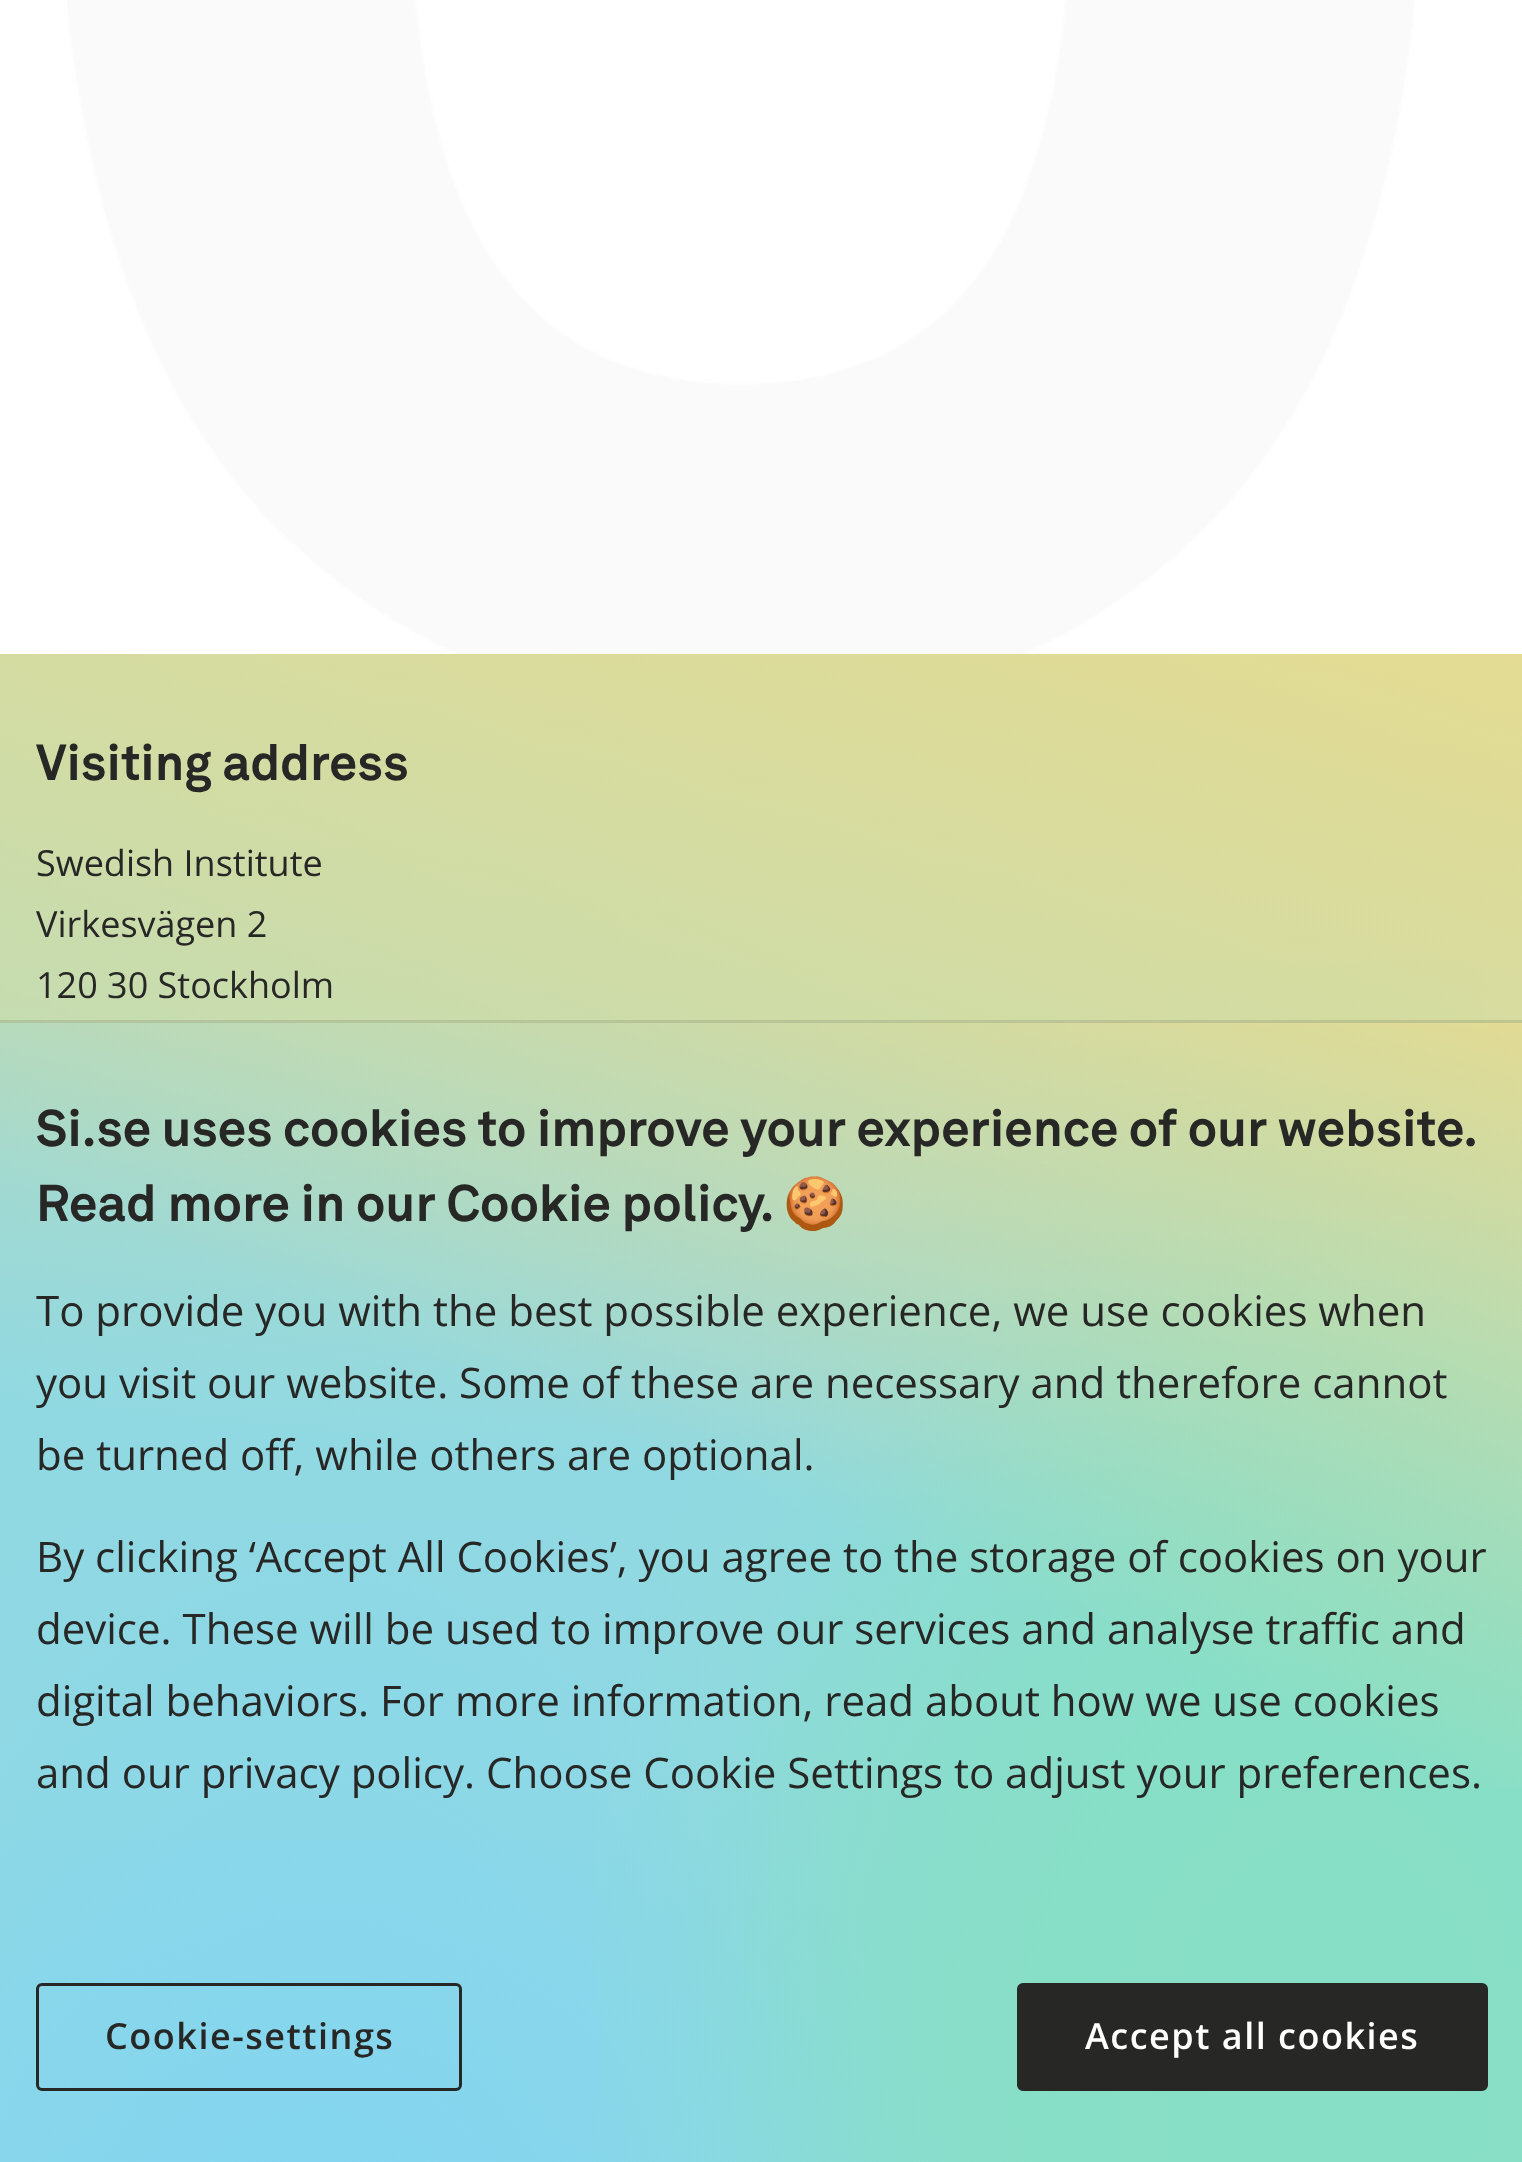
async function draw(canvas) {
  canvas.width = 1522
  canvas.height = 2162
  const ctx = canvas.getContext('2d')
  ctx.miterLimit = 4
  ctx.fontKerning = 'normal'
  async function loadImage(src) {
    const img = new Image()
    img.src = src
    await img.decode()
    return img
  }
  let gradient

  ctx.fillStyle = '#fff'
  ctx.fillRect(0, 0, 1522, 2162)
  ctx.drawImage(await loadImage('image0.png'), 67, 0, 1347, 654)
  gradient = ctx.createLinearGradient(1237, -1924, 287, 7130)
  gradient.addColorStop(0.11, '#f9db7e')
  gradient.addColorStop(0.45, '#92ddeb')
  ctx.fillStyle = gradient
  ctx.fillRect(0, 654, 1522, 369)
  gradient = ctx.createRadialGradient(1310, 1139.49, 0, 1310, 1139.49, 658)
  gradient.addColorStop(0.02, '#87dfc5')
  gradient.addColorStop(1, '#87dfc51f')
  ctx.fillStyle = gradient
  ctx.beginPath()
  ctx.rect(0, 654, 1522, 369)
  ctx.save()
  ctx.clip()
  ctx.scale(1, 2136 / 658)
  ctx.fillRect(0, 0, 1522, 667)
  ctx.restore()
  gradient = ctx.createRadialGradient(1327, 992.23, 0, 1327, 992.23, 773)
  gradient.addColorStop(0, '#87dfc5')
  gradient.addColorStop(1, '#87dfc500')
  ctx.fillStyle = gradient
  ctx.beginPath()
  ctx.rect(1172, 961, 310, 62)
  ctx.save()
  ctx.clip()
  ctx.scale(1, 2856 / 773)
  ctx.fillRect(0, 0, 1522, 586)
  ctx.restore()
  gradient = ctx.createLinearGradient(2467, -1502, -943, 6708)
  gradient.addColorStop(0.15, '#f9db7e')
  gradient.addColorStop(0.46, '#f9db7e00')
  ctx.fillStyle = gradient
  ctx.fillRect(0, 654, 1522, 369)
  ctx.font = '50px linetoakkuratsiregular'
  ctx.fillStyle = '#272726'
  ctx.fillText('Visiting address', 36, 780)
  ctx.font = '36px Open Sans'
  ctx.fillText('Swedish Institute', 36, 876)
  ctx.fillText('Virkesvägen 2', 36, 937)
  ctx.fillText('120 30 Stockholm', 36, 998)
  ctx.fillStyle = '#0000001a'
  ctx.fillRect(0, 1020, 1522, 3)
  gradient = ctx.createLinearGradient(948, -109, 576, 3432)
  gradient.addColorStop(0.11, '#f9db7e')
  gradient.addColorStop(0.45, '#92d8e6')
  ctx.fillStyle = gradient
  ctx.fillRect(0, 1023, 1522, 1139)
  gradient = ctx.createRadialGradient(1310, 1683.9, 0, 1310, 1683.9, 658)
  gradient.addColorStop(0.02, '#87dfc5')
  gradient.addColorStop(1, '#87dfc51f')
  ctx.fillStyle = gradient
  ctx.beginPath()
  ctx.rect(0, 1023, 1522, 1139)
  ctx.save()
  ctx.clip()
  ctx.scale(1, 812 / 658)
  ctx.fillRect(0, 0, 1522, 1752)
  ctx.restore()
  gradient = ctx.createRadialGradient(320, 1399.97, 0, 320, 1399.97, 645)
  gradient.addColorStop(0, '#82d5f1')
  gradient.addColorStop(1, '#82d5f100')
  ctx.fillStyle = gradient
  ctx.beginPath()
  ctx.rect(0, 1522, 878, 640)
  ctx.save()
  ctx.clip()
  ctx.scale(1, 1173 / 645)
  ctx.fillRect(0, 0, 1522, 1189)
  ctx.restore()
  gradient = ctx.createRadialGradient(1327, 1435.04, 0, 1327, 1435.04, 630)
  gradient.addColorStop(0, '#87dfc5')
  gradient.addColorStop(1, '#87dfc500')
  ctx.fillStyle = gradient
  ctx.beginPath()
  ctx.rect(743, 1220, 779, 942)
  ctx.save()
  ctx.clip()
  ctx.scale(1, 907 / 630)
  ctx.fillRect(0, 0, 1522, 1502)
  ctx.restore()
  gradient = ctx.createRadialGradient(320, 2193.03, 0, 320, 2193.03, 758)
  gradient.addColorStop(0, '#82d5f1')
  gradient.addColorStop(1, '#82d5f100')
  ctx.fillStyle = gradient
  ctx.beginPath()
  ctx.rect(0, 1840, 956, 322)
  ctx.save()
  ctx.clip()
  ctx.scale(1, 880 / 758)
  ctx.fillRect(0, 0, 1522, 1863)
  ctx.restore()
  gradient = ctx.createRadialGradient(1327, 1470.55, 0, 1327, 1470.55, 773)
  gradient.addColorStop(0, '#87dfc5')
  gradient.addColorStop(1, '#87dfc500')
  ctx.fillStyle = gradient
  ctx.beginPath()
  ctx.rect(596, 1026, 926, 1136)
  ctx.save()
  ctx.clip()
  ctx.scale(1, 1086 / 773)
  ctx.fillRect(0, 0, 1522, 1539)
  ctx.restore()
  gradient = ctx.createLinearGradient(1480, -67, 44, 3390)
  gradient.addColorStop(0.15, '#f9db7e')
  gradient.addColorStop(0.46, '#f9db7e00')
  ctx.fillStyle = gradient
  ctx.fillRect(0, 1023, 1522, 764)
  ctx.wordSpacing = '-0.25px'
  ctx.font = '51px linetoakkuratsiregular'
  ctx.fillStyle = '#272726'
  ctx.fillText('Si.se uses cookies to improve your experience of our website.', 36, 1146)
  ctx.wordSpacing = '0px'
  ctx.fillText('Read more in our Cookie policy.', 36, 1221)
  ctx.font = '51px Noto Color Emoji'
  ctx.fillText('🍪', 783, 1221)
  ctx.font = '42px Open Sans'
  ctx.fillText('To provide you with the best possible experience, we use cookies when', 36, 1326)
  ctx.fillText('you visit our website. Some of these are necessary and therefore cannot', 36, 1398)
  ctx.fillText('be turned off, while others are optional.', 36, 1470)
  ctx.fillText('By clicking ‘Accept All Cookies’, you agree to the storage of cookies on your', 36, 1572)
  ctx.fillText('device. These will be used to improve our services and analyse traffic and', 36, 1644)
  ctx.fillText('digital behaviors. For more information, read about how we use cookies', 36, 1716)
  ctx.fillText('and our privacy policy. Choose Cookie Settings to adjust your preferences.', 36, 1788)
  ctx.beginPath()
  ctx.roundRect(37.5, 1984.5, 423, 105, 4.5)
  ctx.strokeStyle = '#272726'
  ctx.lineWidth = 3
  ctx.stroke()
  ctx.letterSpacing = '1.5px'
  ctx.font = '600 36px Open Sans'
  ctx.fillText('Cookie-settings', 105, 2049)
  ctx.beginPath()
  ctx.roundRect(1018.5, 1984.5, 468, 105, 4.5)
  ctx.fill()
  ctx.stroke()
  ctx.fillStyle = '#fff'
  ctx.fillText('Accept all cookies', 1085, 2049)
}

draw(document.querySelector('canvas'))
